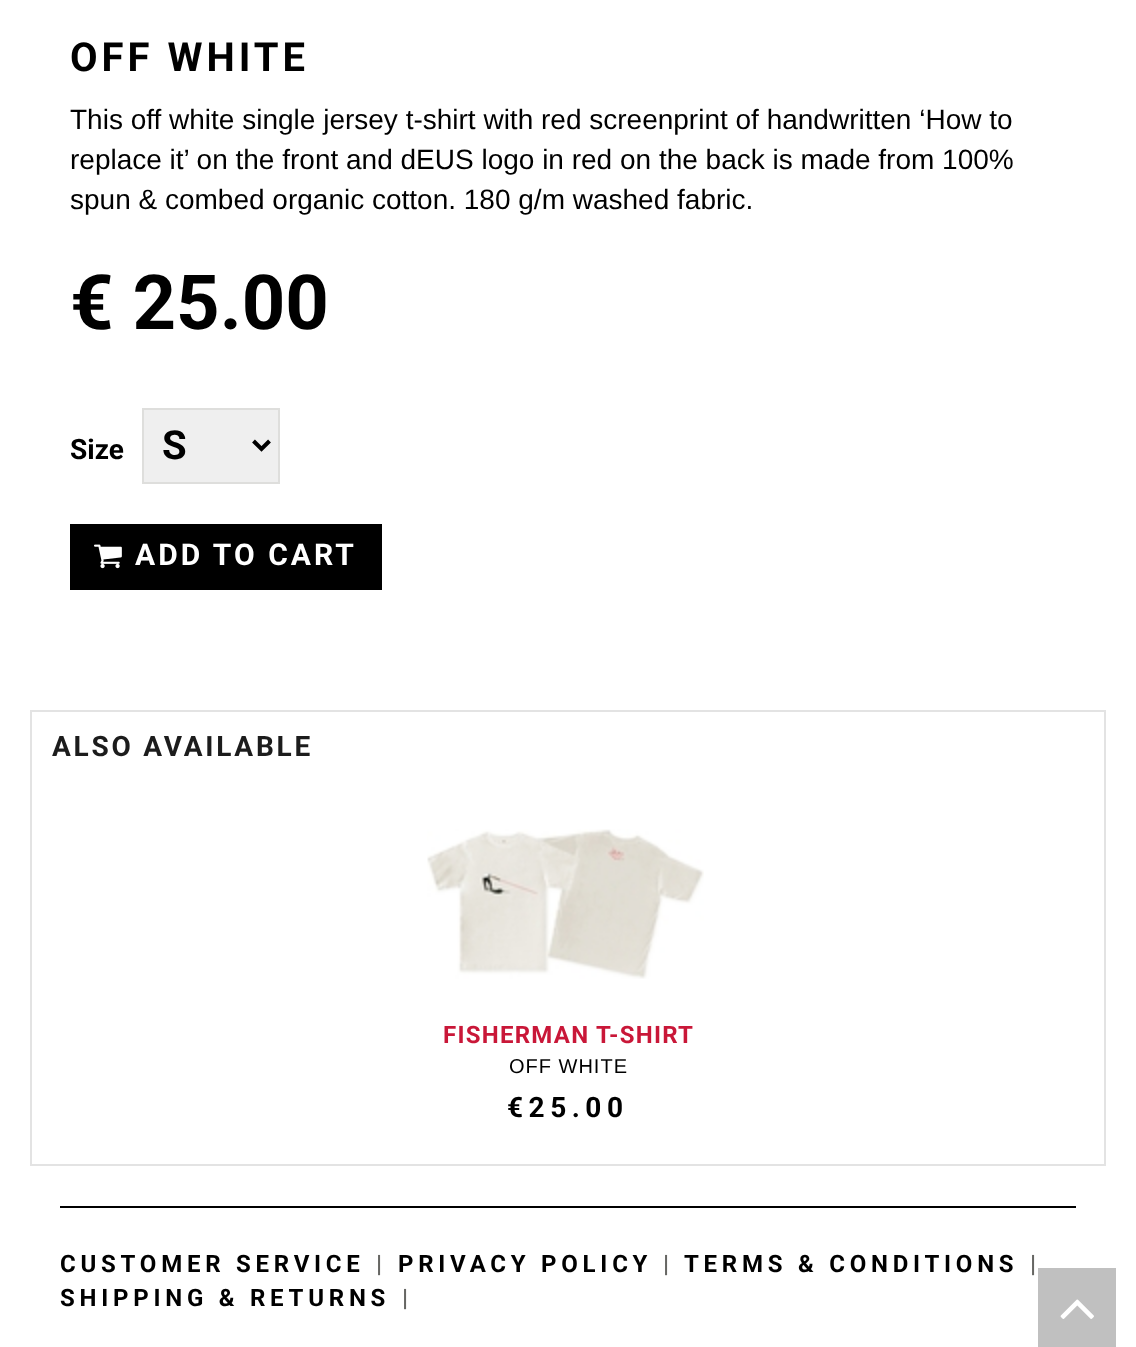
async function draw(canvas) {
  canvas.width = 1136
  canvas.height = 1347
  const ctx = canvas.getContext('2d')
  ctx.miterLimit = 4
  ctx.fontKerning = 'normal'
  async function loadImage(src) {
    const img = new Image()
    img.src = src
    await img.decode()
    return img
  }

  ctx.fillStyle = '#fff'
  ctx.fillRect(0, 0, 1136, 1347)
  ctx.letterSpacing = '4px'
  ctx.font = 'bold 40px Roboto'
  ctx.fillStyle = '#000'
  ctx.fillText('OFF WHITE', 70, 71)
  ctx.letterSpacing = '0px'
  ctx.font = '28px Liberation Sans'
  ctx.fillText('This off white single jersey t-shirt with red screenprint of handwritten ‘How to', 70, 129)
  ctx.fillText('replace it’ on the front and dEUS logo in red on the back is made from 100%', 70, 169)
  ctx.fillText('spun & combed organic cotton. 180 g/m washed fabric.', 70, 209)
  ctx.font = 'bold 76px Roboto'
  ctx.fillText('€ 25.00', 70, 329)
  ctx.font = 'bold 28px Roboto'
  ctx.fillText('Size', 70, 459)
  ctx.fillStyle = '#efefef'
  ctx.beginPath()
  ctx.rect(143, 409, 136, 74)
  ctx.fill()
  ctx.strokeStyle = '#dededc'
  ctx.lineWidth = 2
  ctx.stroke()
  ctx.beginPath()
  ctx.moveTo(253.5, 441)
  ctx.lineTo(261.5, 449)
  ctx.lineTo(269.5, 441)
  ctx.strokeStyle = '#000'
  ctx.lineWidth = 4
  ctx.stroke()
  ctx.font = 'bold 40px Roboto'
  ctx.fillStyle = '#000'
  ctx.fillText('S', 162, 459)
  ctx.fillRect(70, 524, 312, 66)
  ctx.drawImage(await loadImage('image0.png'), 94, 544, 28, 25)
  ctx.letterSpacing = '3px'
  ctx.font = 'bold 30px Roboto'
  ctx.fillStyle = '#fff'
  ctx.fillText('ADD TO CART', 135, 565)
  ctx.strokeStyle = '#e3e3e3'
  ctx.lineWidth = 2
  ctx.strokeRect(31, 711, 1074, 454)
  ctx.letterSpacing = '2.75px'
  ctx.font = 'bold 28px Roboto'
  ctx.fillStyle = '#1c1c1c'
  ctx.fillText('ALSO AVAILABLE', 52, 756)
  ctx.drawImage(await loadImage('image1.png'), 427, 829, 277, 150)
  ctx.letterSpacing = '1.25px'
  ctx.font = 'bold 24px Roboto'
  ctx.fillStyle = '#c91738'
  ctx.fillText('FISHERMAN T-SHIRT', 443, 1043)
  ctx.letterSpacing = '1px'
  ctx.font = '20px Liberation Sans'
  ctx.fillStyle = '#000'
  ctx.fillText('OFF WHITE', 509, 1073)
  ctx.letterSpacing = '5.5px'
  ctx.font = 'bold 28px Roboto'
  ctx.fillText('€25.00', 507, 1117)
  ctx.fillRect(60, 1206, 1016, 2)
  ctx.letterSpacing = '4.75px'
  ctx.font = 'bold 24px Roboto'
  ctx.fillText('CUSTOMER SERVICE', 60, 1272)
  ctx.fillStyle = '#666663'
  ctx.fillText('|', 376, 1272)
  ctx.fillStyle = '#000'
  ctx.fillText('PRIVACY POLICY', 398, 1272)
  ctx.fillStyle = '#666663'
  ctx.fillText('|', 663, 1272)
  ctx.fillStyle = '#000'
  ctx.fillText('TERMS & CONDITIONS', 684, 1272)
  ctx.fillStyle = '#666663'
  ctx.fillText('|', 1030, 1272)
  ctx.fillStyle = '#000'
  ctx.fillText('SHIPPING & RETURNS', 60, 1306)
  ctx.fillStyle = '#666663'
  ctx.fillText('|', 402, 1306)
  ctx.fillStyle = '#c0c0c0'
  ctx.fillRect(1038, 1268, 78, 79)
  ctx.drawImage(await loadImage('image2.png'), 1060, 1299, 34, 20)
}

draw(document.querySelector('canvas'))
